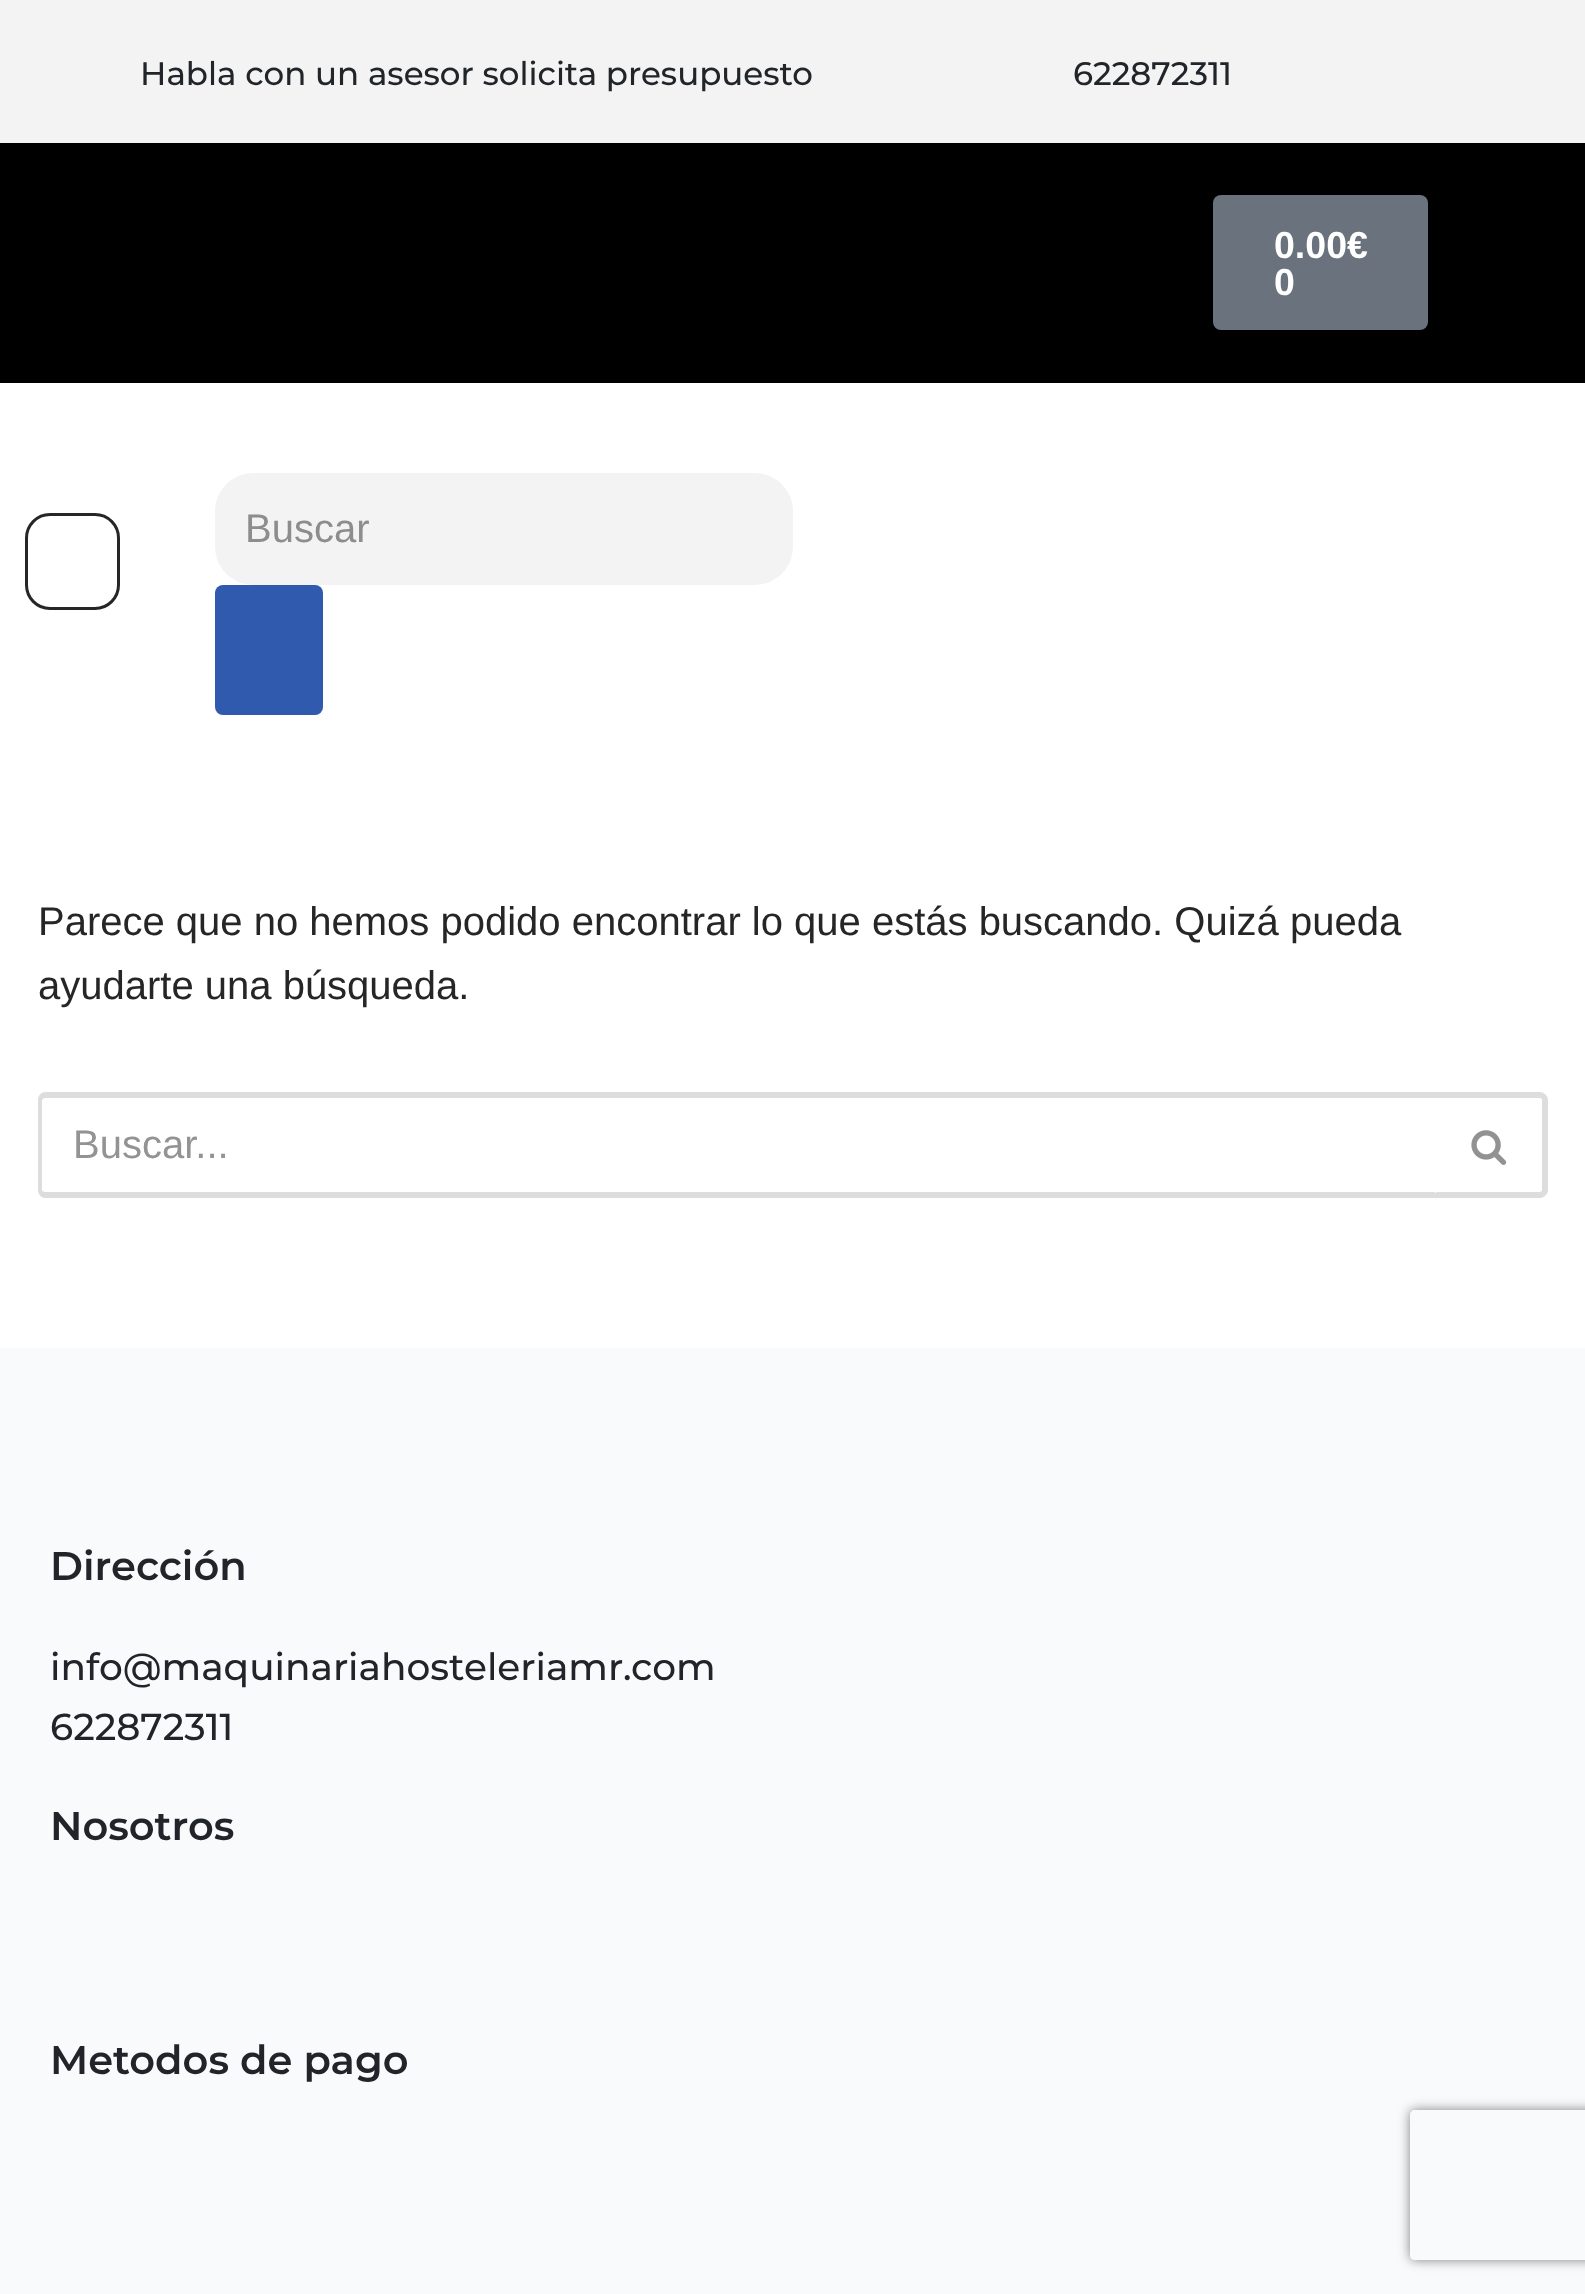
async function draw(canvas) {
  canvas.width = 1585
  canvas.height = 2294
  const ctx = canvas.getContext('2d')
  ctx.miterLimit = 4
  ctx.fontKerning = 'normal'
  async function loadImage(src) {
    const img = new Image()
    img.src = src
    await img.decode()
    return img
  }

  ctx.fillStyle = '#fff'
  ctx.fillRect(0, 0, 1585, 2294)
  ctx.fillStyle = '#f3f3f3'
  ctx.fillRect(0, 0, 1585, 143)
  ctx.font = '500 32.5px Montserrat'
  ctx.fillStyle = '#212529'
  ctx.fillText('Habla con un asesor solicita presupuesto', 140, 85)
  ctx.fillText('622872311', 1073, 85)
  ctx.fillStyle = '#000'
  ctx.fillRect(0, 143, 1585, 240)
  ctx.fillStyle = '#69727d'
  ctx.beginPath()
  ctx.roundRect(1213, 195, 215, 135, 8)
  ctx.fill()
  ctx.font = 'bold 37.5px Liberation Sans'
  ctx.fillStyle = '#fff'
  ctx.fillText('0.00€', 1274, 258)
  ctx.fillText('0', 1274, 295)
  ctx.beginPath()
  ctx.roundRect(26.5, 514.5, 92, 94, 23.5)
  ctx.strokeStyle = '#272626'
  ctx.lineWidth = 3
  ctx.stroke()
  ctx.fillStyle = '#f3f3f3'
  ctx.beginPath()
  ctx.roundRect(215, 473, 578, 112, 38)
  ctx.fill()
  ctx.font = '40px Liberation Sans'
  ctx.fillStyle = '#8d8d8d'
  ctx.fillText('Buscar', 245, 542)
  ctx.fillStyle = '#2f5aae'
  ctx.beginPath()
  ctx.roundRect(215, 585, 108, 130, 8)
  ctx.fill()
  ctx.fillStyle = '#272626'
  ctx.fillText('Parece que no hemos podido encontrar lo que estás buscando. Quizá pueda', 38, 935)
  ctx.fillText('ayudarte una búsqueda.', 38, 999)
  ctx.fillStyle = '#ddd'
  ctx.beginPath()
  ctx.moveTo(45, 1092)
  ctx.lineTo(1435, 1092)
  ctx.lineTo(1435, 1198)
  ctx.lineTo(45, 1198)
  ctx.bezierCurveTo(41, 1198, 38, 1194, 38, 1190)
  ctx.lineTo(38, 1100)
  ctx.bezierCurveTo(38, 1096, 41, 1092, 45, 1092)
  ctx.closePath()
  ctx.moveTo(45, 1098)
  ctx.lineTo(1435, 1098)
  ctx.lineTo(1435, 1192)
  ctx.lineTo(45, 1192)
  ctx.bezierCurveTo(44, 1192, 42, 1191, 42, 1190)
  ctx.lineTo(42, 1100)
  ctx.bezierCurveTo(42, 1099, 44, 1098, 45, 1098)
  ctx.closePath()
  ctx.fill('evenodd')
  ctx.fillStyle = '#939393'
  ctx.fillText('Buscar...', 73, 1158)
  ctx.fillStyle = '#ddd'
  ctx.beginPath()
  ctx.moveTo(1435, 1092)
  ctx.lineTo(1540, 1092)
  ctx.bezierCurveTo(1544, 1092, 1548, 1096, 1548, 1100)
  ctx.lineTo(1548, 1190)
  ctx.bezierCurveTo(1548, 1194, 1544, 1198, 1540, 1198)
  ctx.lineTo(1435, 1198)
  ctx.closePath()
  ctx.moveTo(1435, 1098)
  ctx.lineTo(1540, 1098)
  ctx.bezierCurveTo(1541, 1098, 1542, 1099, 1542, 1100)
  ctx.lineTo(1542, 1190)
  ctx.bezierCurveTo(1542, 1191, 1541, 1192, 1540, 1192)
  ctx.lineTo(1435, 1192)
  ctx.closePath()
  ctx.fill('evenodd')
  ctx.drawImage(await loadImage('image0.png'), 1471, 1130, 36, 35)
  ctx.fillStyle = '#fff'
  ctx.fillRect(1435, 1192, 1, 1)
  ctx.fillStyle = '#f8fafc'
  ctx.fillRect(0, 1348, 1585, 946)
  ctx.font = '600 40px Montserrat'
  ctx.fillStyle = '#212529'
  ctx.fillText('Dirección', 50, 1580)
  ctx.font = '500 37.5px Montserrat'
  ctx.fillText('info@maquinariahosteleriamr.com', 50, 1680)
  ctx.fillText('622872311', 50, 1740)
  ctx.font = '600 40px Montserrat'
  ctx.fillText('Nosotros', 50, 1840)
  ctx.fillText('Metodos de pago', 50, 2074)
  ctx.save()
  ctx.beginPath()
  ctx.moveTo(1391, 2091)
  ctx.lineTo(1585, 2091)
  ctx.lineTo(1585, 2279)
  ctx.lineTo(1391, 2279)
  ctx.closePath()
  ctx.moveTo(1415, 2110)
  ctx.lineTo(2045, 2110)
  ctx.bezierCurveTo(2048, 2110, 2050, 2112, 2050, 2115)
  ctx.lineTo(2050, 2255)
  ctx.bezierCurveTo(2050, 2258, 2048, 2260, 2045, 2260)
  ctx.lineTo(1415, 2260)
  ctx.bezierCurveTo(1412, 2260, 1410, 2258, 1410, 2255)
  ctx.lineTo(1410, 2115)
  ctx.bezierCurveTo(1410, 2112, 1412, 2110, 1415, 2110)
  ctx.closePath()
  ctx.clip('evenodd')
  ctx.fillStyle = '#808080'
  ctx.filter = 'blur(6px)'
  ctx.beginPath()
  ctx.roundRect(1410, 2110, 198, 150, 5)
  ctx.fill()
  ctx.filter = 'none'
  ctx.restore()
}

draw(document.querySelector('canvas'))
